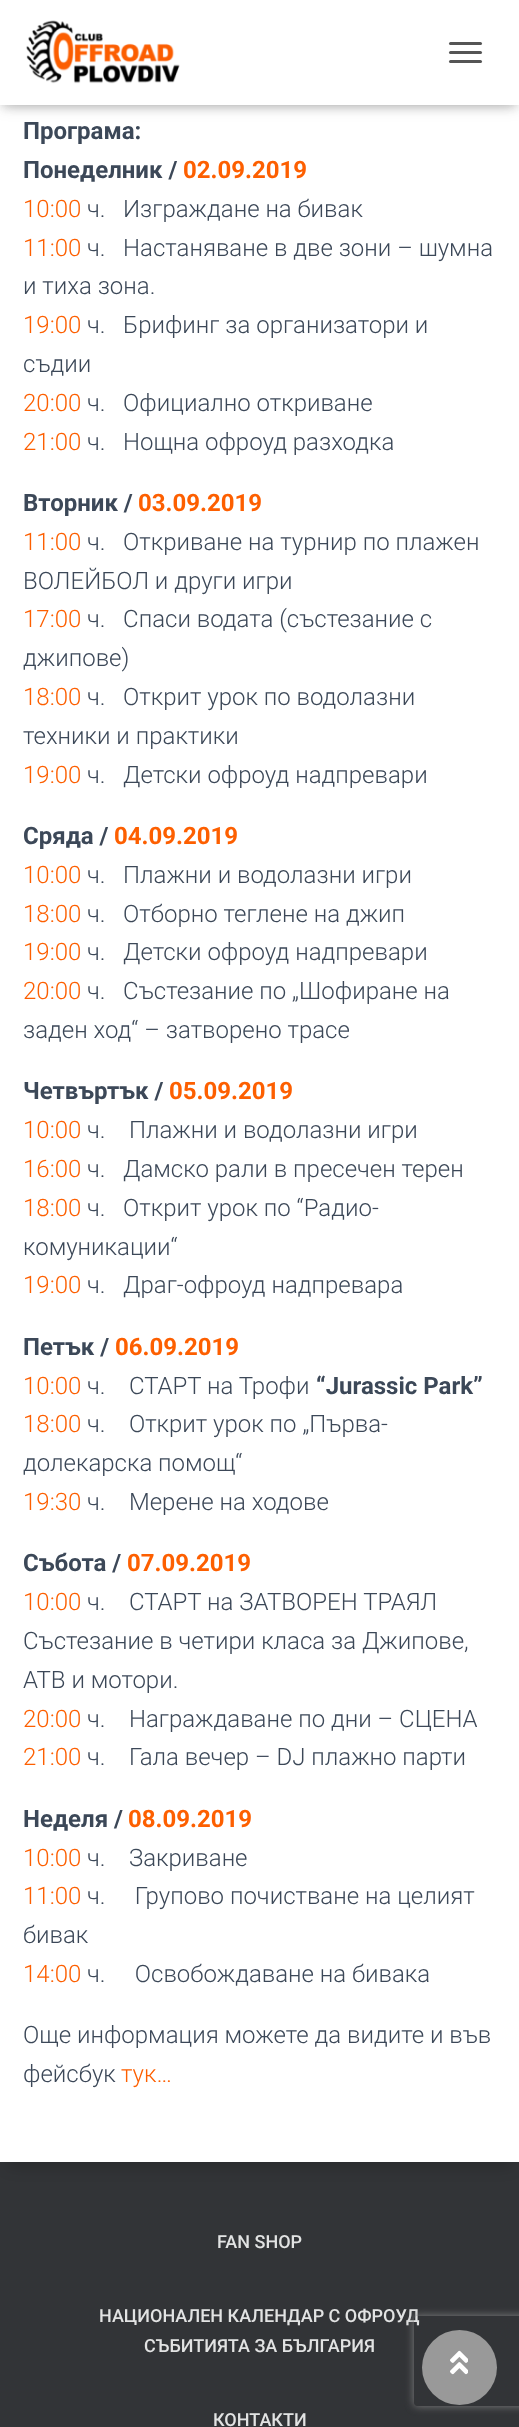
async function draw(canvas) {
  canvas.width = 519
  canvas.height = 2427
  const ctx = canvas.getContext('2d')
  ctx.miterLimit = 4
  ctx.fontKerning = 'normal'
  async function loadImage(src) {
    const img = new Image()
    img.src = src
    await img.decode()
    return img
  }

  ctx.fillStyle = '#323437'
  ctx.fillRect(0, 0, 519, 2427)
  ctx.fillStyle = '#00000033'
  ctx.filter = 'blur(7.5px)'
  ctx.beginPath()
  ctx.rect(8, -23, 504, 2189)
  ctx.fill()
  ctx.filter = 'none'
  ctx.fillStyle = '#fff'
  ctx.fillRect(0, 105, 519, 2057)
  ctx.fillStyle = '#0000001a'
  ctx.filter = 'blur(4px)'
  ctx.beginPath()
  ctx.rect(3, 9, 513, 99)
  ctx.fill()
  ctx.filter = 'none'
  ctx.fillStyle = '#0000001f'
  ctx.filter = 'blur(7.5px)'
  ctx.beginPath()
  ctx.rect(0, 2, 519, 105)
  ctx.fill()
  ctx.filter = 'none'
  ctx.fillStyle = '#0000006b'
  ctx.filter = 'blur(7.5px)'
  ctx.beginPath()
  ctx.rect(9, 11, 501, 87)
  ctx.fill()
  ctx.filter = 'none'
  ctx.fillStyle = '#fff'
  ctx.fillRect(0, 0, 519, 105)
  ctx.drawImage(await loadImage('image0.png'), 26, 20, 154, 64)
  ctx.fillStyle = '#555'
  ctx.beginPath()
  ctx.roundRect(449, 42, 33, 3, 1.5)
  ctx.fill()
  ctx.beginPath()
  ctx.roundRect(449, 51, 33, 3, 1.5)
  ctx.fill()
  ctx.beginPath()
  ctx.roundRect(449, 60, 33, 3, 1.5)
  ctx.fill()
  ctx.font = 'bold 24px Roboto'
  ctx.fillStyle = '#3c4858'
  ctx.fillText('Програма:', 23, 139)
  ctx.fillText('Понеделник /', 23, 178)
  ctx.fillStyle = '#fd5f00'
  ctx.fillText('02.09.2019', 183, 178)
  ctx.font = '300 24px Roboto'
  ctx.fillText('10:00', 23, 217)
  ctx.fillStyle = '#3c4858'
  ctx.fillText('ч.   Изграждане на бивак', 87, 217)
  ctx.fillStyle = '#fd5f00'
  ctx.fillText('11:00', 23, 256)
  ctx.fillStyle = '#3c4858'
  ctx.fillText('ч.   Настаняване в две зони – шумна', 87, 256)
  ctx.fillText('и тиха зона.', 23, 294)
  ctx.fillStyle = '#fd5f00'
  ctx.fillText('19:00', 23, 333)
  ctx.fillStyle = '#3c4858'
  ctx.fillText('ч.   Брифинг за организатори и', 87, 333)
  ctx.fillText('съдии', 23, 372)
  ctx.fillStyle = '#fd5f00'
  ctx.fillText('20:00', 23, 411)
  ctx.fillStyle = '#3c4858'
  ctx.fillText('ч.   Официално откриване', 87, 411)
  ctx.fillStyle = '#fd5f00'
  ctx.fillText('21:00', 23, 450)
  ctx.fillStyle = '#3c4858'
  ctx.fillText('ч.   Нощна офроуд разходка', 87, 450)
  ctx.font = 'bold 24px Roboto'
  ctx.fillText('Вторник /', 23, 511)
  ctx.fillStyle = '#fd5f00'
  ctx.fillText('03.09.2019', 138, 511)
  ctx.font = '300 24px Roboto'
  ctx.fillText('11:00', 23, 550)
  ctx.fillStyle = '#3c4858'
  ctx.fillText('ч.   Откриване на турнир по плажен', 87, 550)
  ctx.fillText('ВОЛЕЙБОЛ и други игри', 23, 589)
  ctx.fillStyle = '#fd5f00'
  ctx.fillText('17:00', 23, 627)
  ctx.fillStyle = '#3c4858'
  ctx.fillText('ч.   Спаси водата (състезание с', 87, 627)
  ctx.fillText('джипове)', 23, 666)
  ctx.fillStyle = '#fd5f00'
  ctx.fillText('18:00', 23, 705)
  ctx.fillStyle = '#3c4858'
  ctx.fillText('ч.   Открит урок по водолазни', 87, 705)
  ctx.fillText('техники и практики', 23, 744)
  ctx.fillStyle = '#fd5f00'
  ctx.fillText('19:00', 23, 783)
  ctx.fillStyle = '#3c4858'
  ctx.fillText('ч.   Детски офроуд надпревари', 87, 783)
  ctx.font = 'bold 24px Roboto'
  ctx.fillText('Сряда /', 23, 844)
  ctx.fillStyle = '#fd5f00'
  ctx.fillText('04.09.2019', 114, 844)
  ctx.font = '300 24px Roboto'
  ctx.fillText('10:00', 23, 883)
  ctx.fillStyle = '#3c4858'
  ctx.fillText('ч.   Плажни и водолазни игри', 87, 883)
  ctx.fillStyle = '#fd5f00'
  ctx.fillText('18:00', 23, 922)
  ctx.fillStyle = '#3c4858'
  ctx.fillText('ч.   Отборно теглене на джип', 87, 922)
  ctx.fillStyle = '#fd5f00'
  ctx.fillText('19:00', 23, 960)
  ctx.fillStyle = '#3c4858'
  ctx.fillText('ч.   Детски офроуд надпревари', 87, 960)
  ctx.fillStyle = '#fd5f00'
  ctx.fillText('20:00', 23, 999)
  ctx.fillStyle = '#3c4858'
  ctx.fillText('ч.   Състезание по „Шофиране на', 87, 999)
  ctx.fillText('заден ход“ – затворено трасе', 23, 1038)
  ctx.font = 'bold 24px Roboto'
  ctx.fillText('Четвъртък /', 23, 1099)
  ctx.fillStyle = '#fd5f00'
  ctx.fillText('05.09.2019', 169, 1099)
  ctx.font = '300 24px Roboto'
  ctx.fillText('10:00', 23, 1138)
  ctx.fillStyle = '#3c4858'
  ctx.fillText('ч.    Плажни и водолазни игри', 87, 1138)
  ctx.fillStyle = '#fd5f00'
  ctx.fillText('16:00', 23, 1177)
  ctx.fillStyle = '#3c4858'
  ctx.fillText('ч.   Дамско рали в пресечен терен', 87, 1177)
  ctx.fillStyle = '#fd5f00'
  ctx.fillText('18:00', 23, 1216)
  ctx.fillStyle = '#3c4858'
  ctx.fillText('ч.   Открит урок по “Радио-', 87, 1216)
  ctx.fillText('комуникации“', 23, 1255)
  ctx.fillStyle = '#fd5f00'
  ctx.fillText('19:00', 23, 1293)
  ctx.fillStyle = '#3c4858'
  ctx.fillText('ч.   Драг-офроуд надпревара', 87, 1293)
  ctx.font = 'bold 24px Roboto'
  ctx.fillText('Петък /', 23, 1355)
  ctx.fillStyle = '#fd5f00'
  ctx.fillText('06.09.2019', 115, 1355)
  ctx.font = '300 24px Roboto'
  ctx.fillText('10:00', 23, 1394)
  ctx.fillStyle = '#3c4858'
  ctx.fillText('ч.    СТАРТ на Трофи', 87, 1394)
  ctx.font = 'bold 24px Roboto'
  ctx.fillText('“Jurassic Park”', 316, 1394)
  ctx.font = '300 24px Roboto'
  ctx.fillStyle = '#fd5f00'
  ctx.fillText('18:00', 23, 1432)
  ctx.fillStyle = '#3c4858'
  ctx.fillText('ч.    Открит урок по „Първа-', 87, 1432)
  ctx.fillText('долекарска помощ“', 23, 1471)
  ctx.fillStyle = '#fd5f00'
  ctx.fillText('19:30', 23, 1510)
  ctx.fillStyle = '#3c4858'
  ctx.fillText('ч.    Мерене на ходове', 87, 1510)
  ctx.font = 'bold 24px Roboto'
  ctx.fillText('Събота /', 23, 1571)
  ctx.fillStyle = '#fd5f00'
  ctx.fillText('07.09.2019', 127, 1571)
  ctx.font = '300 24px Roboto'
  ctx.fillText('10:00', 23, 1610)
  ctx.fillStyle = '#3c4858'
  ctx.fillText('ч.    СТАРТ на ЗАТВОРЕН ТРАЯЛ', 87, 1610)
  ctx.fillText('Състезание в четири класа за Джипове,', 23, 1649)
  ctx.fillText('АТВ и мотори.', 23, 1688)
  ctx.fillStyle = '#fd5f00'
  ctx.fillText('20:00', 23, 1727)
  ctx.fillStyle = '#3c4858'
  ctx.fillText('ч.    Награждаване по дни – СЦЕНА', 87, 1727)
  ctx.fillStyle = '#fd5f00'
  ctx.fillText('21:00', 23, 1765)
  ctx.fillStyle = '#3c4858'
  ctx.fillText('ч.    Гала вечер – DJ плажно парти', 87, 1765)
  ctx.font = 'bold 24px Roboto'
  ctx.fillText('Неделя /', 23, 1827)
  ctx.fillStyle = '#fd5f00'
  ctx.fillText('08.09.2019', 128, 1827)
  ctx.font = '300 24px Roboto'
  ctx.fillText('10:00', 23, 1866)
  ctx.fillStyle = '#3c4858'
  ctx.fillText('ч.    Закриване', 87, 1866)
  ctx.fillStyle = '#fd5f00'
  ctx.fillText('11:00', 23, 1904)
  ctx.fillStyle = '#3c4858'
  ctx.fillText('ч.     Групово почистване на целият', 87, 1904)
  ctx.fillText('бивак', 23, 1943)
  ctx.fillStyle = '#fd5f00'
  ctx.fillText('14:00', 23, 1982)
  ctx.fillStyle = '#3c4858'
  ctx.fillText('ч.     Освобождаване на бивака', 87, 1982)
  ctx.fillText('Още информация можете да видите и във', 23, 2043)
  ctx.fillText('фейсбук', 23, 2082)
  ctx.fillStyle = '#fd5f00'
  ctx.fillText('тук…', 121, 2082)
  ctx.font = '500 18px Roboto'
  ctx.fillStyle = '#e2e3e3'
  ctx.fillText('FAN SHOP', 217, 2248)
  ctx.fillText('НАЦИОНАЛЕН КАЛЕНДАР С ОФРОУД', 99, 2322)
  ctx.fillText('СЪБИТИЯТА ЗА БЪЛГАРИЯ', 144, 2352)
  ctx.fillText('КОНТАКТИ', 213, 2426)
  ctx.save()
  ctx.beginPath()
  ctx.moveTo(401, 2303)
  ctx.lineTo(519, 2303)
  ctx.lineTo(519, 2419)
  ctx.lineTo(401, 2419)
  ctx.closePath()
  ctx.moveTo(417, 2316)
  ctx.lineTo(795, 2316)
  ctx.bezierCurveTo(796.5, 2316, 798, 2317.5, 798, 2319)
  ctx.lineTo(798, 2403)
  ctx.bezierCurveTo(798, 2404.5, 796.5, 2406, 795, 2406)
  ctx.lineTo(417, 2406)
  ctx.bezierCurveTo(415.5, 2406, 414, 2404.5, 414, 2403)
  ctx.lineTo(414, 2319)
  ctx.bezierCurveTo(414, 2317.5, 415.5, 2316, 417, 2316)
  ctx.closePath()
  ctx.clip('evenodd')
  ctx.fillStyle = '#808080'
  ctx.filter = 'blur(4px)'
  ctx.beginPath()
  ctx.roundRect(414, 2316, 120, 90, 3)
  ctx.fill()
  ctx.filter = 'none'
  ctx.restore()
  ctx.fillStyle = '#999'
  ctx.beginPath()
  ctx.arc(459.5, 2367.5, 37.5, 0, 2 * Math.PI)
  ctx.fill()
  ctx.drawImage(await loadImage('image1.png'), 450, 2350, 18, 25)
}

draw(document.querySelector('canvas'))
